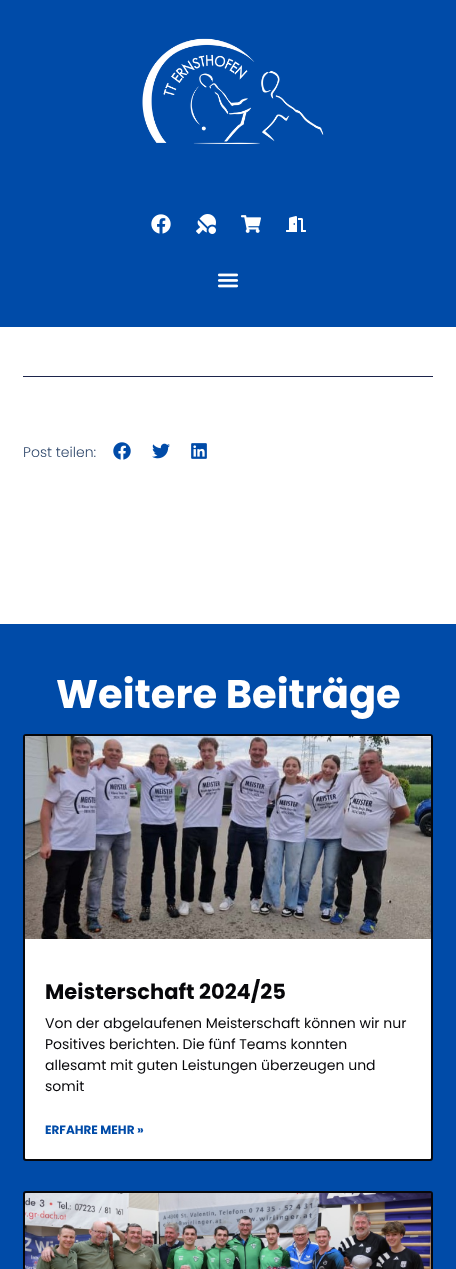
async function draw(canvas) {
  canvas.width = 456
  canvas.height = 1269
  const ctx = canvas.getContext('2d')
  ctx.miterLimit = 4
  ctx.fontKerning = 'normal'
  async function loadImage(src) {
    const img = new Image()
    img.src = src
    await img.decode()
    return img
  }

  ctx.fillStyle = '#fff'
  ctx.fillRect(0, 0, 456, 1269)
  ctx.fillStyle = '#004ba8'
  ctx.fillRect(0, 0, 456, 327)
  ctx.drawImage(await loadImage('image0.png'), 142, 38, 182, 107)
  ctx.drawImage(await loadImage('image1.png'), 151, 214, 20, 20)
  ctx.drawImage(await loadImage('image2.png'), 196, 214, 20, 20)
  ctx.drawImage(await loadImage('image3.png'), 241, 215, 20, 18)
  ctx.drawImage(await loadImage('image4.png'), 286, 216, 20, 16)
  ctx.drawImage(await loadImage('image5.png'), 217, 273, 22, 15)
  ctx.fillStyle = '#1c244b'
  ctx.fillRect(23, 376, 410, 1)
  ctx.font = '300 14px Poppins'
  ctx.fillStyle = '#324a6d'
  ctx.fillText('Post teilen:', 23, 457)
  ctx.drawImage(await loadImage('image6.png'), 113, 442, 18, 18)
  ctx.drawImage(await loadImage('image7.png'), 152, 443, 18, 16)
  ctx.drawImage(await loadImage('image8.png'), 191, 443, 16, 16)
  ctx.fillStyle = '#004ba8'
  ctx.fillRect(0, 624, 456, 645)
  ctx.font = 'bold 40px Poppins'
  ctx.fillStyle = '#fff'
  ctx.fillText('Weitere Beiträge', 56, 708)
  ctx.beginPath()
  ctx.roundRect(24, 735, 408, 425, 2)
  ctx.fill()
  ctx.strokeStyle = '#07070a'
  ctx.lineWidth = 2
  ctx.stroke()
  ctx.drawImage(await loadImage('image9.png'), 25, 736, 406, 203)
  ctx.font = 'bold 21px Poppins'
  ctx.fillStyle = '#07070a'
  ctx.fillText('Meisterschaft 2024/25', 45, 999)
  ctx.font = '14px Poppins'
  ctx.fillText('Von der abgelaufenen Meisterschaft können wir nur', 45, 1028)
  ctx.fillText('Positives berichten. Die fünf Teams konnten', 45, 1049)
  ctx.fillText('allesamt mit guten Leistungen überzeugen und', 45, 1070)
  ctx.fillText('somit', 45, 1091)
  ctx.font = 'bold 12px Poppins'
  ctx.fillStyle = '#004ba8'
  ctx.fillText('ERFAHRE MEHR »', 45, 1134)
  ctx.beginPath()
  ctx.roundRect(24, 1192, 408, 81, 2)
  ctx.stroke()
  ctx.drawImage(await loadImage('image10.png'), 25, 1193, 406, 76)
}

draw(document.querySelector('canvas'))
